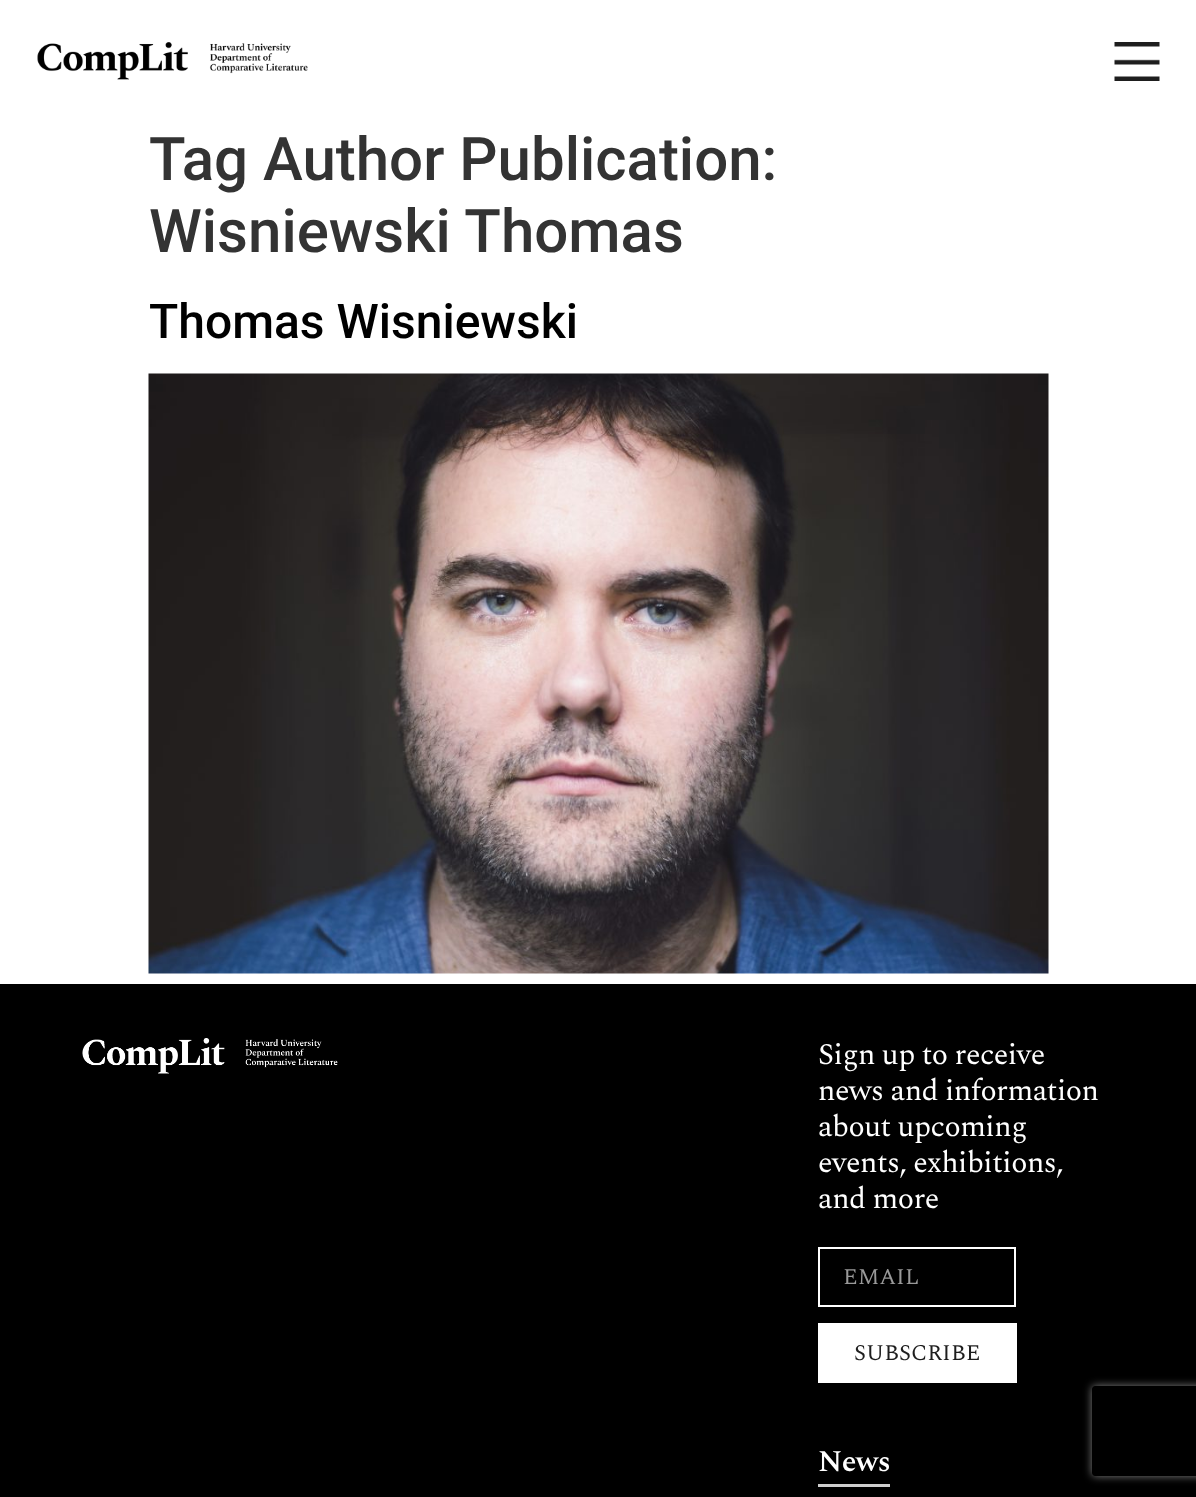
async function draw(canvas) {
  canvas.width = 1196
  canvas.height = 1497
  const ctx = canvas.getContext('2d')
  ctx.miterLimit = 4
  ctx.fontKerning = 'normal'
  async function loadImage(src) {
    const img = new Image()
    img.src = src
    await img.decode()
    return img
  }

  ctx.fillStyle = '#fff'
  ctx.fillRect(0, 0, 1196, 1497)
  ctx.drawImage(await loadImage('image0.png'), 37, 42, 271, 38)
  ctx.drawImage(await loadImage('image1.png'), 1114, 42, 46, 39)
  ctx.font = '500 60px Roboto'
  ctx.fillStyle = '#333'
  ctx.fillText('Tag Author Publication:', 149, 180)
  ctx.fillText('Wisniewski Thomas', 149, 252)
  ctx.font = '500 48px Roboto'
  ctx.fillStyle = '#000'
  ctx.fillText('Thomas Wisniewski', 149, 338)
  ctx.drawImage(await loadImage('image2.png'), 148, 373, 901, 601)
  ctx.fillRect(0, 984, 1196, 513)
  ctx.drawImage(await loadImage('image3.png'), 82, 1038, 256, 36)
  ctx.letterSpacing = '-0.5px'
  ctx.font = '30px Spectral'
  ctx.fillStyle = '#fff'
  ctx.fillText('Sign up to receive', 818, 1064)
  ctx.fillText('news and information', 818, 1100)
  ctx.fillText('about upcoming', 818, 1136)
  ctx.fillText('events, exhibitions,', 818, 1172)
  ctx.fillText('and more', 818, 1208)
  ctx.strokeStyle = '#fff'
  ctx.lineWidth = 2
  ctx.strokeRect(819, 1248, 196, 58)
  ctx.letterSpacing = '0px'
  ctx.font = '22.5px Spectral'
  ctx.fillStyle = '#999'
  ctx.fillText('EMAIL', 843, 1284)
  ctx.fillStyle = '#fff'
  ctx.fillRect(818, 1323, 199, 60)
  ctx.fillStyle = '#1e1e1e'
  ctx.fillText('SUBSCRIBE', 854, 1360)
  ctx.save()
  ctx.beginPath()
  ctx.moveTo(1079, 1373)
  ctx.lineTo(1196, 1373)
  ctx.lineTo(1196, 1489)
  ctx.lineTo(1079, 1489)
  ctx.closePath()
  ctx.moveTo(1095, 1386)
  ctx.lineTo(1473, 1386)
  ctx.bezierCurveTo(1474.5, 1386, 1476, 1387.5, 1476, 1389)
  ctx.lineTo(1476, 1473)
  ctx.bezierCurveTo(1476, 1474.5, 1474.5, 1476, 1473, 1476)
  ctx.lineTo(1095, 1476)
  ctx.bezierCurveTo(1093.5, 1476, 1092, 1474.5, 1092, 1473)
  ctx.lineTo(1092, 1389)
  ctx.bezierCurveTo(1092, 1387.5, 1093.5, 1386, 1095, 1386)
  ctx.closePath()
  ctx.clip('evenodd')
  ctx.fillStyle = '#808080'
  ctx.filter = 'blur(4px)'
  ctx.beginPath()
  ctx.roundRect(1092, 1386, 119, 90, 3)
  ctx.fill()
  ctx.filter = 'none'
  ctx.restore()
  ctx.letterSpacing = '-0.5px'
  ctx.font = '600 30px Spectral'
  ctx.fillStyle = '#fff'
  ctx.fillText('News', 818, 1471)
  ctx.fillStyle = '#cecece'
  ctx.fillRect(818, 1484, 72, 3)
}

draw(document.querySelector('canvas'))
